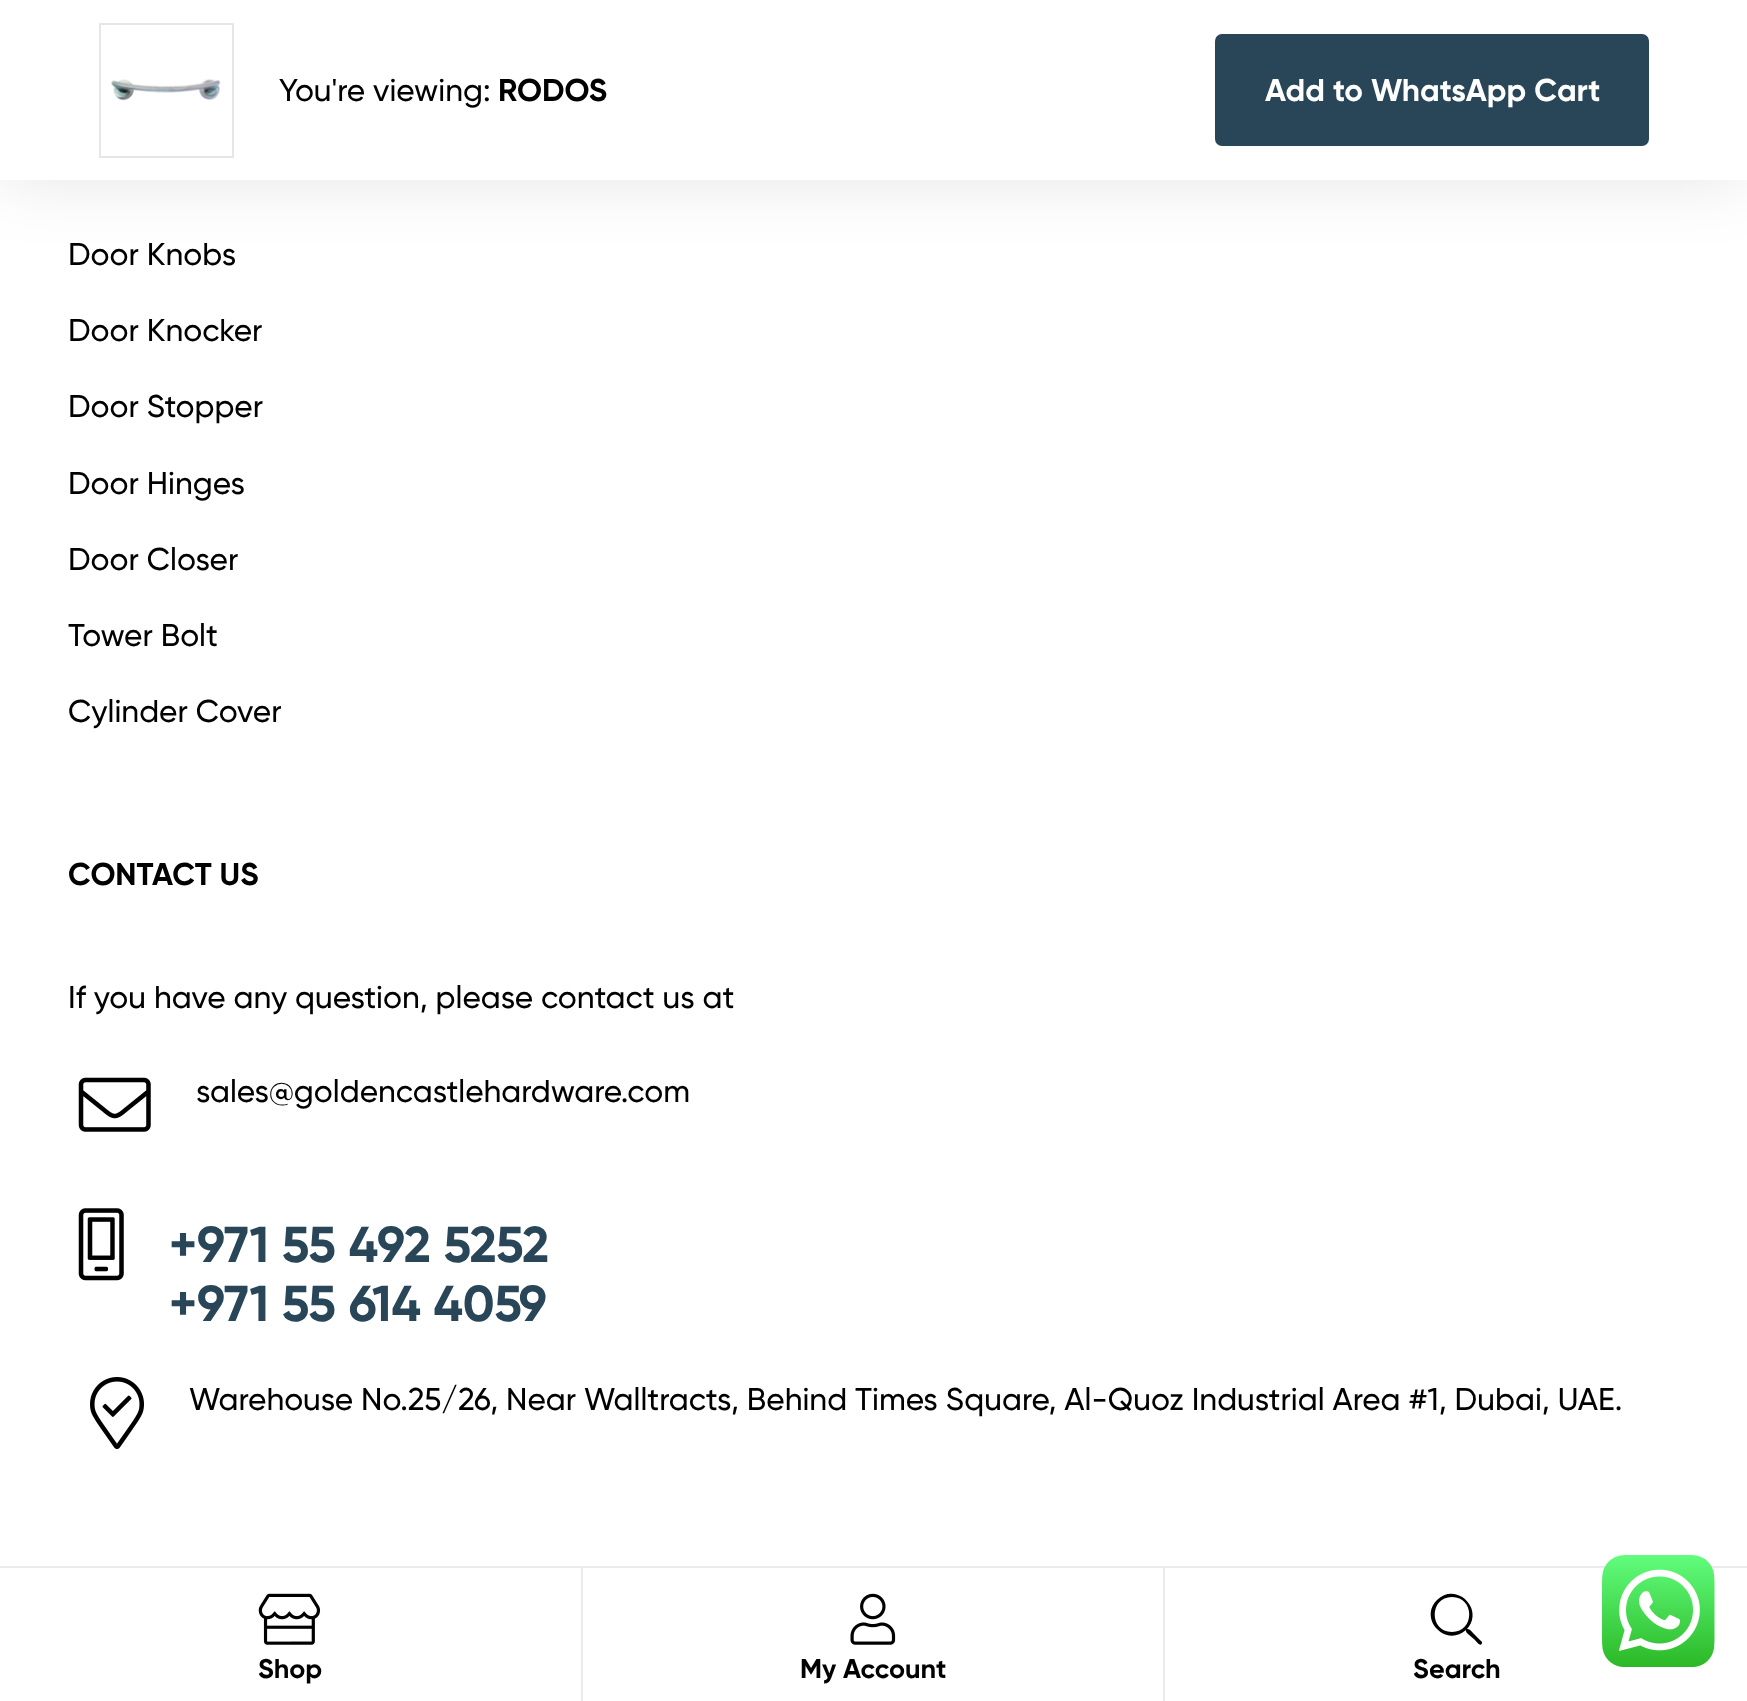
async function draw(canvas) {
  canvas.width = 1747
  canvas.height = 1701
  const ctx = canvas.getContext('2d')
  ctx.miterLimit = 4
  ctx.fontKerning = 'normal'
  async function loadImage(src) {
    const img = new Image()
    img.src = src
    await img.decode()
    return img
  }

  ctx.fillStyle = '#fff'
  ctx.fillRect(0, 0, 1747, 1701)
  ctx.fillStyle = '#0000001a'
  ctx.filter = 'blur(34px)'
  ctx.beginPath()
  ctx.rect(0, 0, 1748, 180)
  ctx.fill()
  ctx.filter = 'none'
  ctx.fillStyle = '#fff'
  ctx.fillRect(0, 0, 1747, 180)
  ctx.strokeStyle = '#e6e6e6'
  ctx.lineWidth = 2
  ctx.strokeRect(100, 24, 133, 133)
  ctx.drawImage(await loadImage('image0.png'), 111, 79, 110, 22)
  ctx.font = '500 31.5px Gilroy'
  ctx.fillStyle = '#000'
  ctx.fillText('You\'re viewing:', 279, 101)
  ctx.font = 'bold 31.5px Gilroy'
  ctx.fillText('RODOS', 498, 101)
  ctx.fillStyle = '#294658'
  ctx.beginPath()
  ctx.roundRect(1217.5, 36.5, 429, 107, 4.5)
  ctx.fill()
  ctx.strokeStyle = '#294658'
  ctx.lineWidth = 5
  ctx.stroke()
  ctx.fillStyle = '#fff'
  ctx.fillText('Add to WhatsApp Cart', 1265, 101)
  ctx.font = '500 31.5px Gilroy'
  ctx.fillStyle = '#000'
  ctx.fillText('Door Knobs', 68, 265)
  ctx.fillText('Door Knocker', 68, 341)
  ctx.fillText('Door Stopper', 68, 417)
  ctx.fillText('Door Hinges', 68, 494)
  ctx.fillText('Door Closer', 68, 570)
  ctx.fillText('Tower Bolt', 68, 646)
  ctx.fillText('Cylinder Cover', 68, 722)
  ctx.font = 'bold 31.5px Gilroy'
  ctx.fillText('CONTACT US', 68, 885)
  ctx.font = '500 31.5px Gilroy'
  ctx.fillText('If you have any question, please contact us at', 68, 1008)
  ctx.drawImage(await loadImage('image1.png'), 78, 1077, 73, 55)
  ctx.fillText('sales@goldencastlehardware.com', 196, 1102)
  ctx.drawImage(await loadImage('image2.png'), 78, 1208, 46, 73)
  ctx.font = 'bold 50.5px Gilroy'
  ctx.fillStyle = '#294658'
  ctx.fillText('+971 55 492 5252', 169, 1262)
  ctx.fillText('+971 55 614 4059', 169, 1321)
  ctx.drawImage(await loadImage('image3.png'), 90, 1377, 54, 72)
  ctx.font = '500 31.5px Gilroy'
  ctx.fillStyle = '#000'
  ctx.fillText('Warehouse No.25/26, Near Walltracts, Behind Times Square, Al-Quoz Industrial Area #1, Dubai, UAE.', 189, 1410)
  ctx.fillStyle = '#ebebeb'
  ctx.fillRect(0, 1566, 1747, 2)
  ctx.fillRect(581, 1568, 2, 133)
  ctx.drawImage(await loadImage('image4.png'), 258, 1593, 63, 52)
  ctx.font = 'bold 27px Gilroy'
  ctx.fillStyle = '#000'
  ctx.fillText('Shop', 258, 1678)
  ctx.fillStyle = '#ebebeb'
  ctx.fillRect(1163, 1568, 2, 133)
  ctx.drawImage(await loadImage('image5.png'), 850, 1593, 46, 52)
  ctx.fillStyle = '#000'
  ctx.fillText('My Account', 800, 1678)
  ctx.beginPath()
  ctx.moveTo(1482, 1642)
  ctx.lineTo(1473, 1633)
  ctx.bezierCurveTo(1471, 1631, 1470, 1629, 1467, 1629)
  ctx.bezierCurveTo(1485, 1609, 1456, 1581, 1437, 1600)
  ctx.bezierCurveTo(1418, 1619, 1446, 1648, 1466, 1630)
  ctx.bezierCurveTo(1466, 1632, 1466, 1632, 1468, 1634)
  ctx.lineTo(1475, 1640)
  ctx.bezierCurveTo(1475, 1640, 1481, 1648, 1482, 1643)
  ctx.closePath()
  ctx.moveTo(1452, 1632)
  ctx.bezierCurveTo(1429, 1632, 1429, 1597, 1452, 1597)
  ctx.bezierCurveTo(1475, 1597, 1475, 1632, 1452, 1632)
  ctx.closePath()
  ctx.fill()
  ctx.fillText('Search', 1413, 1678)
  ctx.drawImage(await loadImage('image6.png'), 1602, 1555, 113, 112)
}

draw(document.querySelector('canvas'))
